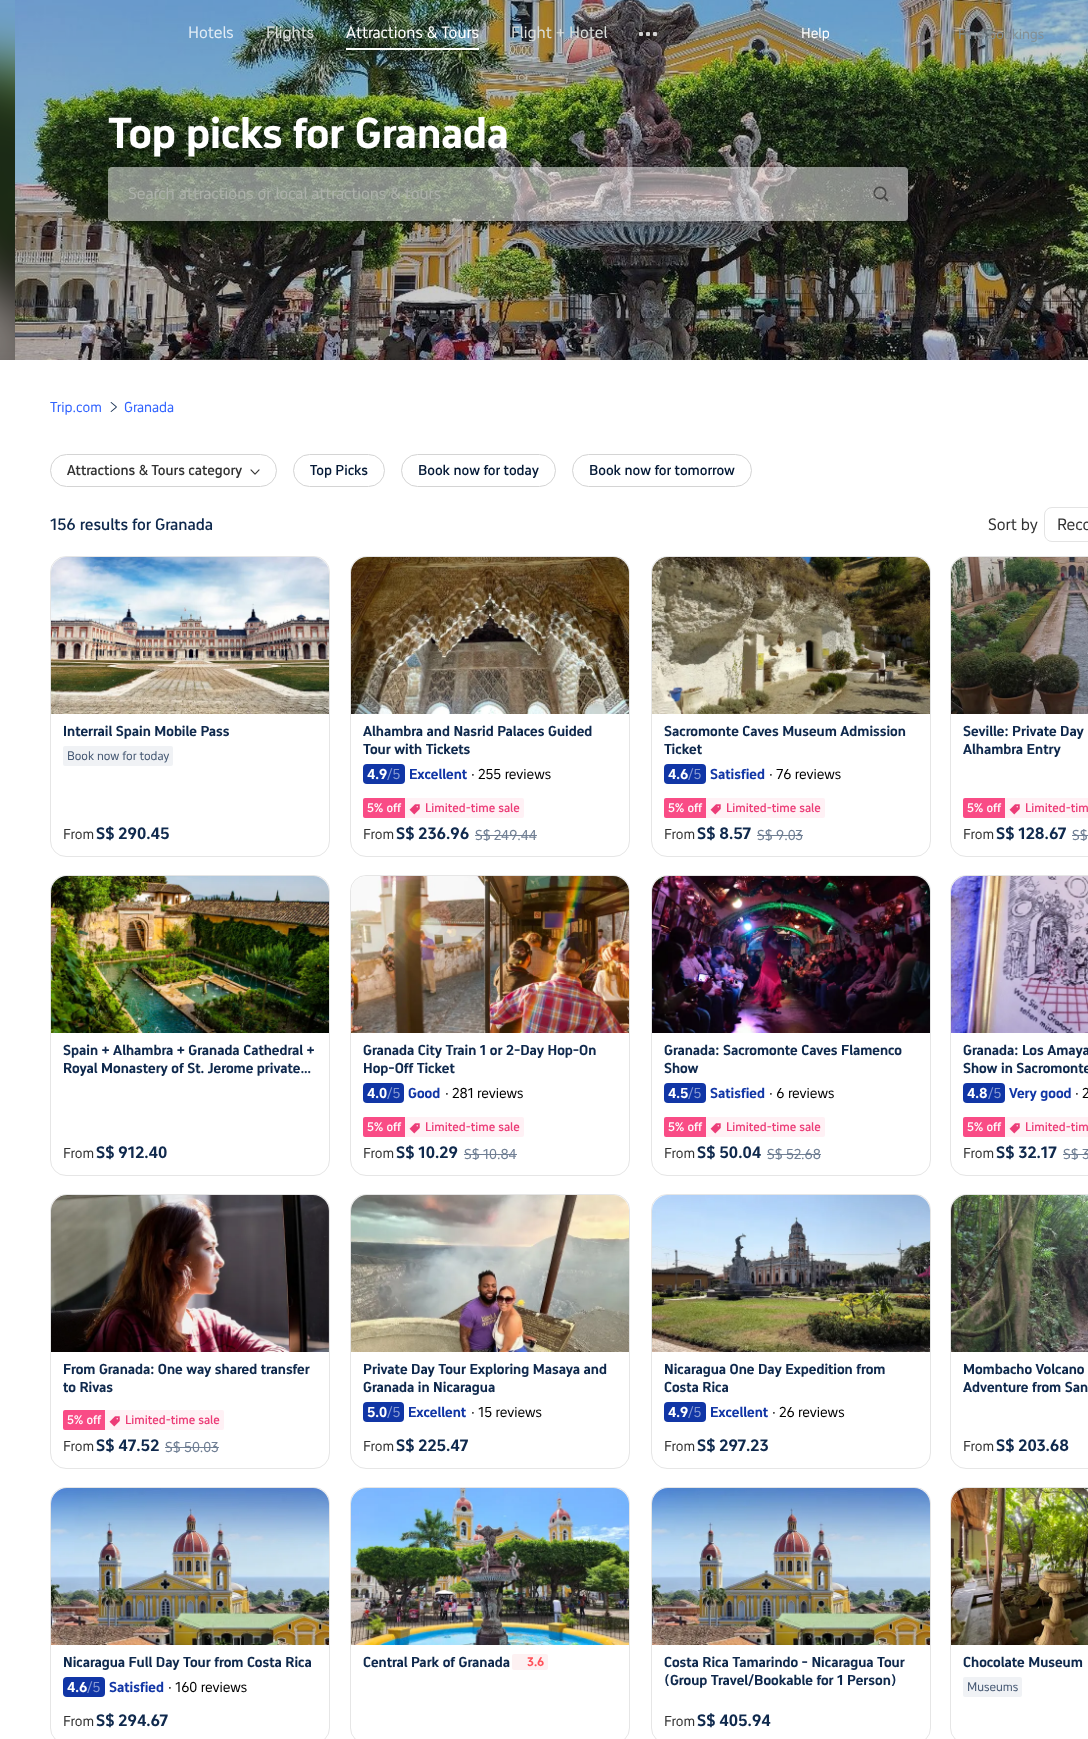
async function draw(canvas) {
  canvas.width = 1088
  canvas.height = 1739
  const ctx = canvas.getContext('2d')
  ctx.miterLimit = 4
  ctx.fontKerning = 'normal'
  async function loadImage(src) {
    const img = new Image()
    img.src = src
    await img.decode()
    return img
  }

  ctx.fillStyle = '#fff'
  ctx.fillRect(0, 0, 1088, 1739)
  ctx.drawImage(await loadImage('image1.png'), 15, 0, 1073, 360)
  ctx.font = '16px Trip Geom'
  ctx.fillStyle = '#e1ecf5'
  ctx.fillText('Hotels', 188, 38)
  ctx.fillStyle = '#dce0dd'
  ctx.fillText('Flights', 266, 38)
  ctx.fillStyle = '#fff'
  ctx.fillText('Attractions & Tours', 346, 38)
  ctx.fillRect(346, 48, 133, 2)
  ctx.fillStyle = '#dce0dd'
  ctx.fillText('Flight + Hotel', 511, 38)
  ctx.fillStyle = '#ffffffcc'
  ctx.beginPath()
  ctx.roundRect(639, 32, 4, 4, 1)
  ctx.fill()
  ctx.beginPath()
  ctx.roundRect(646, 32, 4, 4, 1)
  ctx.fill()
  ctx.beginPath()
  ctx.roundRect(653, 32, 4, 4, 1)
  ctx.fill()
  ctx.font = '14px Trip Geom'
  ctx.fillStyle = '#fff'
  ctx.fillText('Help', 801, 38)
  ctx.fillStyle = '#849094'
  ctx.fillText('Find bookings', 958, 39)
  ctx.drawImage(await loadImage('image0.png'), 0, 0, 15, 360)
  ctx.font = 'bold 42px Trip Geom'
  ctx.fillStyle = '#fff'
  ctx.fillText('Top picks for Granada', 108, 148)
  ctx.save()
  ctx.beginPath()
  ctx.moveTo(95, 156)
  ctx.lineTo(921, 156)
  ctx.lineTo(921, 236)
  ctx.lineTo(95, 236)
  ctx.closePath()
  ctx.moveTo(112, 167)
  ctx.lineTo(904, 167)
  ctx.bezierCurveTo(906, 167, 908, 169, 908, 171)
  ctx.lineTo(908, 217)
  ctx.bezierCurveTo(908, 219, 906, 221, 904, 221)
  ctx.lineTo(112, 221)
  ctx.bezierCurveTo(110, 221, 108, 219, 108, 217)
  ctx.lineTo(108, 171)
  ctx.bezierCurveTo(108, 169, 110, 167, 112, 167)
  ctx.closePath()
  ctx.clip('evenodd')
  ctx.fillStyle = '#00000026'
  ctx.filter = 'blur(4px)'
  ctx.beginPath()
  ctx.roundRect(108, 169, 800, 54, 4)
  ctx.fill()
  ctx.filter = 'none'
  ctx.restore()
  ctx.fillStyle = '#ffffff80'
  ctx.beginPath()
  ctx.roundRect(108, 167, 800, 54, 4)
  ctx.fill()
  ctx.font = '16px Trip Geom'
  ctx.fillStyle = '#adb1ab'
  ctx.fillText('Search attractions or local attractions & tours', 128, 199)
  ctx.drawImage(await loadImage('image2.png'), 873, 186, 16, 16)
  ctx.font = '14px Trip Geom'
  ctx.fillStyle = '#3264ff'
  ctx.fillText('Trip.com', 50, 412)
  ctx.drawImage(await loadImage('image3.png'), 110, 402, 7, 10)
  ctx.fillText('Granada', 124, 412)
  ctx.beginPath()
  ctx.roundRect(50.5, 454.5, 226, 32, 16)
  ctx.strokeStyle = '#d4d4d4'
  ctx.stroke()
  ctx.font = '500 14px Trip Geom'
  ctx.fillStyle = '#333'
  ctx.fillText('Attractions & Tours category', 67, 475)
  ctx.drawImage(await loadImage('image4.png'), 250, 469, 10, 6)
  ctx.beginPath()
  ctx.roundRect(293.5, 454.5, 91, 32, 16)
  ctx.stroke()
  ctx.fillStyle = '#051a37'
  ctx.fillText('Top Picks', 310, 475)
  ctx.beginPath()
  ctx.roundRect(401.5, 454.5, 154, 32, 16)
  ctx.stroke()
  ctx.fillText('Book now for today', 418, 475)
  ctx.beginPath()
  ctx.roundRect(572.5, 454.5, 179, 32, 16)
  ctx.stroke()
  ctx.fillText('Book now for tomorrow', 589, 475)
  ctx.font = '500 16px Trip Geom'
  ctx.fillStyle = '#0f294d'
  ctx.fillText('156 results for Granada', 50, 530)
  ctx.font = '16px Trip Geom'
  ctx.fillStyle = '#333'
  ctx.fillText('Sort by', 988, 530)
  ctx.beginPath()
  ctx.roundRect(1044.5, 507.5, 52, 34, 7.5)
  ctx.strokeStyle = '#e4e4e4'
  ctx.stroke()
  ctx.fillText('Reco', 1057, 530)
  ctx.beginPath()
  ctx.roundRect(50.5, 556.5, 279, 300, 15.5)
  ctx.strokeStyle = '#e6e6e6'
  ctx.stroke()
  ctx.drawImage(await loadImage('image5.png'), 51, 557, 278, 157)
  ctx.font = 'bold 14px Trip Geom'
  ctx.fillStyle = '#0f294d'
  ctx.fillText('Interrail Spain Mobile Pass', 63, 736)
  ctx.fillStyle = '#f0f2f5'
  ctx.beginPath()
  ctx.roundRect(63, 746, 110, 20, 2)
  ctx.fill()
  ctx.font = '12px Trip Geom'
  ctx.fillStyle = '#455873'
  ctx.fillText('Book now for today', 67, 760)
  ctx.font = '14px Trip Geom'
  ctx.fillStyle = '#333'
  ctx.fillText('From', 63, 839)
  ctx.font = 'bold 16px Trip Geom'
  ctx.fillStyle = '#0f294d'
  ctx.fillText('S$ 290.45', 96, 839)
  ctx.beginPath()
  ctx.roundRect(350.5, 556.5, 279, 300, 15.5)
  ctx.stroke()
  ctx.drawImage(await loadImage('image6.png'), 351, 557, 278, 157)
  ctx.font = 'bold 14px Trip Geom'
  ctx.fillText('Alhambra and Nasrid Palaces Guided', 363, 736)
  ctx.fillText('Tour with Tickets', 363, 754)
  ctx.fillStyle = '#1136a6'
  ctx.beginPath()
  ctx.roundRect(363, 764, 42, 20, 4)
  ctx.fill()
  ctx.fillStyle = '#fff'
  ctx.fillText('4.9', 367, 779)
  ctx.font = '14px Trip Geom'
  ctx.fillStyle = '#889bd3'
  ctx.fillText('/5', 387, 779)
  ctx.font = 'bold 14px Trip Geom'
  ctx.fillStyle = '#1136a6'
  ctx.fillText('Excellent', 409, 779)
  ctx.font = '14px Trip Geom'
  ctx.fillStyle = '#000'
  ctx.fillText('· 255 reviews', 471, 779)
  ctx.fillStyle = '#f94c86'
  ctx.beginPath()
  ctx.roundRect(363, 798, 42, 20, [2, 0, 0, 2])
  ctx.fill()
  ctx.font = '500 12px Trip Geom'
  ctx.fillStyle = '#fff'
  ctx.fillText('5% off', 367, 812)
  ctx.fillStyle = '#fff1f5'
  ctx.beginPath()
  ctx.roundRect(405, 798, 119, 20, [0, 2, 2, 0])
  ctx.fill()
  ctx.drawImage(await loadImage('image7.png'), 409, 804, 11, 11)
  ctx.fillStyle = '#ec3c77'
  ctx.fillText('Limited-time sale', 425, 812)
  ctx.font = '14px Trip Geom'
  ctx.fillStyle = '#333'
  ctx.fillText('From', 363, 839)
  ctx.font = 'bold 16px Trip Geom'
  ctx.fillStyle = '#0f294d'
  ctx.fillText('S$ 236.96', 396, 839)
  ctx.font = '14px Trip Geom'
  ctx.fillStyle = '#707f94'
  ctx.fillText('S$ 249.44', 475, 840)
  ctx.fillRect(475, 835, 62, 1)
  ctx.beginPath()
  ctx.roundRect(651.5, 556.5, 279, 300, 15.5)
  ctx.stroke()
  ctx.drawImage(await loadImage('image8.png'), 652, 557, 278, 157)
  ctx.font = 'bold 14px Trip Geom'
  ctx.fillStyle = '#0f294d'
  ctx.fillText('Sacromonte Caves Museum Admission', 664, 736)
  ctx.fillText('Ticket', 664, 754)
  ctx.fillStyle = '#1136a6'
  ctx.beginPath()
  ctx.roundRect(664, 764, 42, 20, 4)
  ctx.fill()
  ctx.fillStyle = '#fff'
  ctx.fillText('4.6', 668, 779)
  ctx.font = '14px Trip Geom'
  ctx.fillStyle = '#889bd3'
  ctx.fillText('/5', 688, 779)
  ctx.font = 'bold 14px Trip Geom'
  ctx.fillStyle = '#1136a6'
  ctx.fillText('Satisfied', 710, 779)
  ctx.font = '14px Trip Geom'
  ctx.fillStyle = '#000'
  ctx.fillText('· 76 reviews', 769, 779)
  ctx.fillStyle = '#f94c86'
  ctx.beginPath()
  ctx.roundRect(664, 798, 42, 20, [2, 0, 0, 2])
  ctx.fill()
  ctx.font = '500 12px Trip Geom'
  ctx.fillStyle = '#fff'
  ctx.fillText('5% off', 668, 812)
  ctx.fillStyle = '#fff1f5'
  ctx.beginPath()
  ctx.roundRect(706, 798, 119, 20, [0, 2, 2, 0])
  ctx.fill()
  ctx.drawImage(await loadImage('image7.png'), 710, 804, 11, 11)
  ctx.fillStyle = '#ec3c77'
  ctx.fillText('Limited-time sale', 726, 812)
  ctx.font = '14px Trip Geom'
  ctx.fillStyle = '#333'
  ctx.fillText('From', 664, 839)
  ctx.font = 'bold 16px Trip Geom'
  ctx.fillStyle = '#0f294d'
  ctx.fillText('S$ 8.57', 697, 839)
  ctx.font = '14px Trip Geom'
  ctx.fillStyle = '#707f94'
  ctx.fillText('S$ 9.03', 757, 840)
  ctx.fillRect(757, 835, 46, 1)
  ctx.beginPath()
  ctx.roundRect(950.5, 556.5, 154, 300, 15.5)
  ctx.stroke()
  ctx.drawImage(await loadImage('image9.png'), 951, 557, 137, 157)
  ctx.font = 'bold 14px Trip Geom'
  ctx.fillStyle = '#0f294d'
  ctx.fillText('Seville: Private Day', 963, 736)
  ctx.fillText('Alhambra Entry', 963, 754)
  ctx.fillStyle = '#f94c86'
  ctx.beginPath()
  ctx.roundRect(963, 798, 42, 20, [2, 0, 0, 2])
  ctx.fill()
  ctx.font = '500 12px Trip Geom'
  ctx.fillStyle = '#fff'
  ctx.fillText('5% off', 967, 812)
  ctx.fillStyle = '#fff1f5'
  ctx.fillRect(1005, 798, 83, 20)
  ctx.drawImage(await loadImage('image7.png'), 1009, 804, 11, 11)
  ctx.fillStyle = '#ec3c77'
  ctx.fillText('Limited-tim', 1025, 812)
  ctx.font = '14px Trip Geom'
  ctx.fillStyle = '#333'
  ctx.fillText('From', 963, 839)
  ctx.font = 'bold 16px Trip Geom'
  ctx.fillStyle = '#0f294d'
  ctx.fillText('S$ 128.67', 996, 839)
  ctx.font = '14px Trip Geom'
  ctx.fillStyle = '#707f94'
  ctx.fillText('S$', 1072, 840)
  ctx.fillRect(1072, 835, 16, 1)
  ctx.beginPath()
  ctx.roundRect(50.5, 875.5, 279, 300, 15.5)
  ctx.stroke()
  ctx.drawImage(await loadImage('image10.png'), 51, 876, 278, 157)
  ctx.font = 'bold 14px Trip Geom'
  ctx.fillStyle = '#0f294d'
  ctx.fillText('Spain + Alhambra + Granada Cathedral +', 63, 1055)
  ctx.fillText('Royal Monastery of St. Jerome private…', 63, 1073)
  ctx.font = '14px Trip Geom'
  ctx.fillStyle = '#333'
  ctx.fillText('From', 63, 1158)
  ctx.font = 'bold 16px Trip Geom'
  ctx.fillStyle = '#0f294d'
  ctx.fillText('S$ 912.40', 96, 1158)
  ctx.beginPath()
  ctx.roundRect(350.5, 875.5, 279, 300, 15.5)
  ctx.stroke()
  ctx.drawImage(await loadImage('image11.png'), 351, 876, 278, 157)
  ctx.font = 'bold 14px Trip Geom'
  ctx.fillText('Granada City Train 1 or 2-Day Hop-On', 363, 1055)
  ctx.fillText('Hop-Off Ticket', 363, 1073)
  ctx.fillStyle = '#1136a6'
  ctx.beginPath()
  ctx.roundRect(363, 1083, 41, 20, 4)
  ctx.fill()
  ctx.fillStyle = '#fff'
  ctx.fillText('4.0', 367, 1098)
  ctx.font = '14px Trip Geom'
  ctx.fillStyle = '#889bd3'
  ctx.fillText('/5', 387, 1098)
  ctx.font = 'bold 14px Trip Geom'
  ctx.fillStyle = '#1136a6'
  ctx.fillText('Good', 408, 1098)
  ctx.font = '14px Trip Geom'
  ctx.fillStyle = '#000'
  ctx.fillText('· 281 reviews', 445, 1098)
  ctx.fillStyle = '#f94c86'
  ctx.beginPath()
  ctx.roundRect(363, 1117, 42, 20, [2, 0, 0, 2])
  ctx.fill()
  ctx.font = '500 12px Trip Geom'
  ctx.fillStyle = '#fff'
  ctx.fillText('5% off', 367, 1131)
  ctx.fillStyle = '#fff1f5'
  ctx.beginPath()
  ctx.roundRect(405, 1117, 119, 20, [0, 2, 2, 0])
  ctx.fill()
  ctx.drawImage(await loadImage('image7.png'), 409, 1123, 11, 11)
  ctx.fillStyle = '#ec3c77'
  ctx.fillText('Limited-time sale', 425, 1131)
  ctx.font = '14px Trip Geom'
  ctx.fillStyle = '#333'
  ctx.fillText('From', 363, 1158)
  ctx.font = 'bold 16px Trip Geom'
  ctx.fillStyle = '#0f294d'
  ctx.fillText('S$ 10.29', 396, 1158)
  ctx.font = '14px Trip Geom'
  ctx.fillStyle = '#707f94'
  ctx.fillText('S$ 10.84', 464, 1159)
  ctx.fillRect(464, 1154, 53, 1)
  ctx.beginPath()
  ctx.roundRect(651.5, 875.5, 279, 300, 15.5)
  ctx.stroke()
  ctx.drawImage(await loadImage('image12.png'), 652, 876, 278, 157)
  ctx.font = 'bold 14px Trip Geom'
  ctx.fillStyle = '#0f294d'
  ctx.fillText('Granada: Sacromonte Caves Flamenco', 664, 1055)
  ctx.fillText('Show', 664, 1073)
  ctx.fillStyle = '#1136a6'
  ctx.beginPath()
  ctx.roundRect(664, 1083, 42, 20, 4)
  ctx.fill()
  ctx.fillStyle = '#fff'
  ctx.fillText('4.5', 668, 1098)
  ctx.font = '14px Trip Geom'
  ctx.fillStyle = '#889bd3'
  ctx.fillText('/5', 688, 1098)
  ctx.font = 'bold 14px Trip Geom'
  ctx.fillStyle = '#1136a6'
  ctx.fillText('Satisfied', 710, 1098)
  ctx.font = '14px Trip Geom'
  ctx.fillStyle = '#000'
  ctx.fillText('· 6 reviews', 769, 1098)
  ctx.fillStyle = '#f94c86'
  ctx.beginPath()
  ctx.roundRect(664, 1117, 42, 20, [2, 0, 0, 2])
  ctx.fill()
  ctx.font = '500 12px Trip Geom'
  ctx.fillStyle = '#fff'
  ctx.fillText('5% off', 668, 1131)
  ctx.fillStyle = '#fff1f5'
  ctx.beginPath()
  ctx.roundRect(706, 1117, 119, 20, [0, 2, 2, 0])
  ctx.fill()
  ctx.drawImage(await loadImage('image7.png'), 710, 1123, 11, 11)
  ctx.fillStyle = '#ec3c77'
  ctx.fillText('Limited-time sale', 726, 1131)
  ctx.font = '14px Trip Geom'
  ctx.fillStyle = '#333'
  ctx.fillText('From', 664, 1158)
  ctx.font = 'bold 16px Trip Geom'
  ctx.fillStyle = '#0f294d'
  ctx.fillText('S$ 50.04', 697, 1158)
  ctx.font = '14px Trip Geom'
  ctx.fillStyle = '#707f94'
  ctx.fillText('S$ 52.68', 767, 1159)
  ctx.fillRect(767, 1154, 54, 1)
  ctx.beginPath()
  ctx.roundRect(950.5, 875.5, 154, 300, 15.5)
  ctx.stroke()
  ctx.drawImage(await loadImage('image13.png'), 951, 876, 137, 157)
  ctx.font = 'bold 14px Trip Geom'
  ctx.fillStyle = '#0f294d'
  ctx.fillText('Granada: Los Amaya', 963, 1055)
  ctx.fillText('Show in Sacromonte', 963, 1073)
  ctx.fillStyle = '#1136a6'
  ctx.beginPath()
  ctx.roundRect(963, 1083, 42, 20, 4)
  ctx.fill()
  ctx.fillStyle = '#fff'
  ctx.fillText('4.8', 967, 1098)
  ctx.font = '14px Trip Geom'
  ctx.fillStyle = '#889bd3'
  ctx.fillText('/5', 988, 1098)
  ctx.font = 'bold 14px Trip Geom'
  ctx.fillStyle = '#1136a6'
  ctx.fillText('Very good', 1009, 1098)
  ctx.font = '14px Trip Geom'
  ctx.fillStyle = '#000'
  ctx.fillText('· 2', 1075, 1098)
  ctx.fillStyle = '#f94c86'
  ctx.beginPath()
  ctx.roundRect(963, 1117, 42, 20, [2, 0, 0, 2])
  ctx.fill()
  ctx.font = '500 12px Trip Geom'
  ctx.fillStyle = '#fff'
  ctx.fillText('5% off', 967, 1131)
  ctx.fillStyle = '#fff1f5'
  ctx.fillRect(1005, 1117, 83, 20)
  ctx.drawImage(await loadImage('image7.png'), 1009, 1123, 11, 11)
  ctx.fillStyle = '#ec3c77'
  ctx.fillText('Limited-tim', 1025, 1131)
  ctx.font = '14px Trip Geom'
  ctx.fillStyle = '#333'
  ctx.fillText('From', 963, 1158)
  ctx.font = 'bold 16px Trip Geom'
  ctx.fillStyle = '#0f294d'
  ctx.fillText('S$ 32.17', 996, 1158)
  ctx.font = '14px Trip Geom'
  ctx.fillStyle = '#707f94'
  ctx.fillText('S$ 3', 1063, 1159)
  ctx.fillRect(1063, 1154, 25, 1)
  ctx.beginPath()
  ctx.roundRect(50.5, 1194.5, 279, 274, 15.5)
  ctx.stroke()
  ctx.drawImage(await loadImage('image14.png'), 51, 1195, 278, 157)
  ctx.font = 'bold 14px Trip Geom'
  ctx.fillStyle = '#0f294d'
  ctx.fillText('From Granada: One way shared transfer', 63, 1374)
  ctx.fillText('to Rivas', 63, 1392)
  ctx.fillStyle = '#f94c86'
  ctx.beginPath()
  ctx.roundRect(63, 1410, 42, 20, [2, 0, 0, 2])
  ctx.fill()
  ctx.font = '500 12px Trip Geom'
  ctx.fillStyle = '#fff'
  ctx.fillText('5% off', 67, 1424)
  ctx.fillStyle = '#fff1f5'
  ctx.beginPath()
  ctx.roundRect(105, 1410, 119, 20, [0, 2, 2, 0])
  ctx.fill()
  ctx.drawImage(await loadImage('image7.png'), 109, 1416, 11, 11)
  ctx.fillStyle = '#ec3c77'
  ctx.fillText('Limited-time sale', 125, 1424)
  ctx.font = '14px Trip Geom'
  ctx.fillStyle = '#333'
  ctx.fillText('From', 63, 1451)
  ctx.font = 'bold 16px Trip Geom'
  ctx.fillStyle = '#0f294d'
  ctx.fillText('S$ 47.52', 96, 1451)
  ctx.font = '14px Trip Geom'
  ctx.fillStyle = '#707f94'
  ctx.fillText('S$ 50.03', 165, 1452)
  ctx.fillRect(165, 1447, 54, 1)
  ctx.beginPath()
  ctx.roundRect(350.5, 1194.5, 279, 274, 15.5)
  ctx.stroke()
  ctx.drawImage(await loadImage('image15.png'), 351, 1195, 278, 157)
  ctx.font = 'bold 14px Trip Geom'
  ctx.fillStyle = '#0f294d'
  ctx.fillText('Private Day Tour Exploring Masaya and', 363, 1374)
  ctx.fillText('Granada in Nicaragua', 363, 1392)
  ctx.fillStyle = '#1136a6'
  ctx.beginPath()
  ctx.roundRect(363, 1402, 41, 20, 4)
  ctx.fill()
  ctx.fillStyle = '#fff'
  ctx.fillText('5.0', 367, 1417)
  ctx.font = '14px Trip Geom'
  ctx.fillStyle = '#889bd3'
  ctx.fillText('/5', 387, 1417)
  ctx.font = 'bold 14px Trip Geom'
  ctx.fillStyle = '#1136a6'
  ctx.fillText('Excellent', 408, 1417)
  ctx.font = '14px Trip Geom'
  ctx.fillStyle = '#000'
  ctx.fillText('· 15 reviews', 471, 1417)
  ctx.fillStyle = '#333'
  ctx.fillText('From', 363, 1451)
  ctx.font = 'bold 16px Trip Geom'
  ctx.fillStyle = '#0f294d'
  ctx.fillText('S$ 225.47', 396, 1451)
  ctx.beginPath()
  ctx.roundRect(651.5, 1194.5, 279, 274, 15.5)
  ctx.stroke()
  ctx.drawImage(await loadImage('image16.png'), 652, 1195, 278, 157)
  ctx.font = 'bold 14px Trip Geom'
  ctx.fillText('Nicaragua One Day Expedition from', 664, 1374)
  ctx.fillText('Costa Rica', 664, 1392)
  ctx.fillStyle = '#1136a6'
  ctx.beginPath()
  ctx.roundRect(664, 1402, 42, 20, 4)
  ctx.fill()
  ctx.fillStyle = '#fff'
  ctx.fillText('4.9', 668, 1417)
  ctx.font = '14px Trip Geom'
  ctx.fillStyle = '#889bd3'
  ctx.fillText('/5', 688, 1417)
  ctx.font = 'bold 14px Trip Geom'
  ctx.fillStyle = '#1136a6'
  ctx.fillText('Excellent', 710, 1417)
  ctx.font = '14px Trip Geom'
  ctx.fillStyle = '#000'
  ctx.fillText('· 26 reviews', 772, 1417)
  ctx.fillStyle = '#333'
  ctx.fillText('From', 664, 1451)
  ctx.font = 'bold 16px Trip Geom'
  ctx.fillStyle = '#0f294d'
  ctx.fillText('S$ 297.23', 697, 1451)
  ctx.beginPath()
  ctx.roundRect(950.5, 1194.5, 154, 274, 15.5)
  ctx.stroke()
  ctx.drawImage(await loadImage('image17.png'), 951, 1195, 137, 157)
  ctx.font = 'bold 14px Trip Geom'
  ctx.fillText('Mombacho Volcano', 963, 1374)
  ctx.fillText('Adventure from San', 963, 1392)
  ctx.font = '14px Trip Geom'
  ctx.fillStyle = '#333'
  ctx.fillText('From', 963, 1451)
  ctx.font = 'bold 16px Trip Geom'
  ctx.fillStyle = '#0f294d'
  ctx.fillText('S$ 203.68', 996, 1451)
  ctx.beginPath()
  ctx.roundRect(50.5, 1487.5, 279, 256, 15.5)
  ctx.stroke()
  ctx.drawImage(await loadImage('image18.png'), 51, 1488, 278, 157)
  ctx.font = 'bold 14px Trip Geom'
  ctx.fillText('Nicaragua Full Day Tour from Costa Rica', 63, 1667)
  ctx.fillStyle = '#1136a6'
  ctx.beginPath()
  ctx.roundRect(63, 1677, 42, 20, 4)
  ctx.fill()
  ctx.fillStyle = '#fff'
  ctx.fillText('4.6', 67, 1692)
  ctx.font = '14px Trip Geom'
  ctx.fillStyle = '#889bd3'
  ctx.fillText('/5', 87, 1692)
  ctx.font = 'bold 14px Trip Geom'
  ctx.fillStyle = '#1136a6'
  ctx.fillText('Satisfied', 109, 1692)
  ctx.font = '14px Trip Geom'
  ctx.fillStyle = '#000'
  ctx.fillText('· 160 reviews', 168, 1692)
  ctx.fillStyle = '#333'
  ctx.fillText('From', 63, 1726)
  ctx.font = 'bold 16px Trip Geom'
  ctx.fillStyle = '#0f294d'
  ctx.fillText('S$ 294.67', 96, 1726)
  ctx.beginPath()
  ctx.roundRect(350.5, 1487.5, 279, 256, 15.5)
  ctx.stroke()
  ctx.drawImage(await loadImage('image19.png'), 351, 1488, 278, 157)
  ctx.font = 'bold 14px Trip Geom'
  ctx.fillText('Central Park of Granada', 363, 1667)
  ctx.fillStyle = '#fdf1f2'
  ctx.beginPath()
  ctx.roundRect(512, 1654, 36, 16, 2)
  ctx.fill()
  ctx.font = 'bold 12px Trip Geom'
  ctx.fillStyle = '#ff525a'
  ctx.fillText('3.6', 527, 1666)
  ctx.beginPath()
  ctx.roundRect(651.5, 1487.5, 279, 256, 15.5)
  ctx.stroke()
  ctx.drawImage(await loadImage('image20.png'), 652, 1488, 278, 157)
  ctx.font = 'bold 14px Trip Geom'
  ctx.fillStyle = '#0f294d'
  ctx.fillText('Costa Rica Tamarindo - Nicaragua Tour', 664, 1667)
  ctx.fillText('(Group Travel/Bookable for 1 Person)', 664, 1685)
  ctx.font = '14px Trip Geom'
  ctx.fillStyle = '#333'
  ctx.fillText('From', 664, 1726)
  ctx.font = 'bold 16px Trip Geom'
  ctx.fillStyle = '#0f294d'
  ctx.fillText('S$ 405.94', 697, 1726)
  ctx.beginPath()
  ctx.roundRect(950.5, 1487.5, 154, 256, 15.5)
  ctx.stroke()
  ctx.drawImage(await loadImage('image21.png'), 951, 1488, 137, 157)
  ctx.font = 'bold 14px Trip Geom'
  ctx.fillText('Chocolate Museum', 963, 1667)
  ctx.fillStyle = '#f0f2f5'
  ctx.beginPath()
  ctx.roundRect(963, 1677, 59, 20, 2)
  ctx.fill()
  ctx.font = '12px Trip Geom'
  ctx.fillStyle = '#455873'
  ctx.fillText('Museums', 967, 1691)
}

draw(document.querySelector('canvas'))
